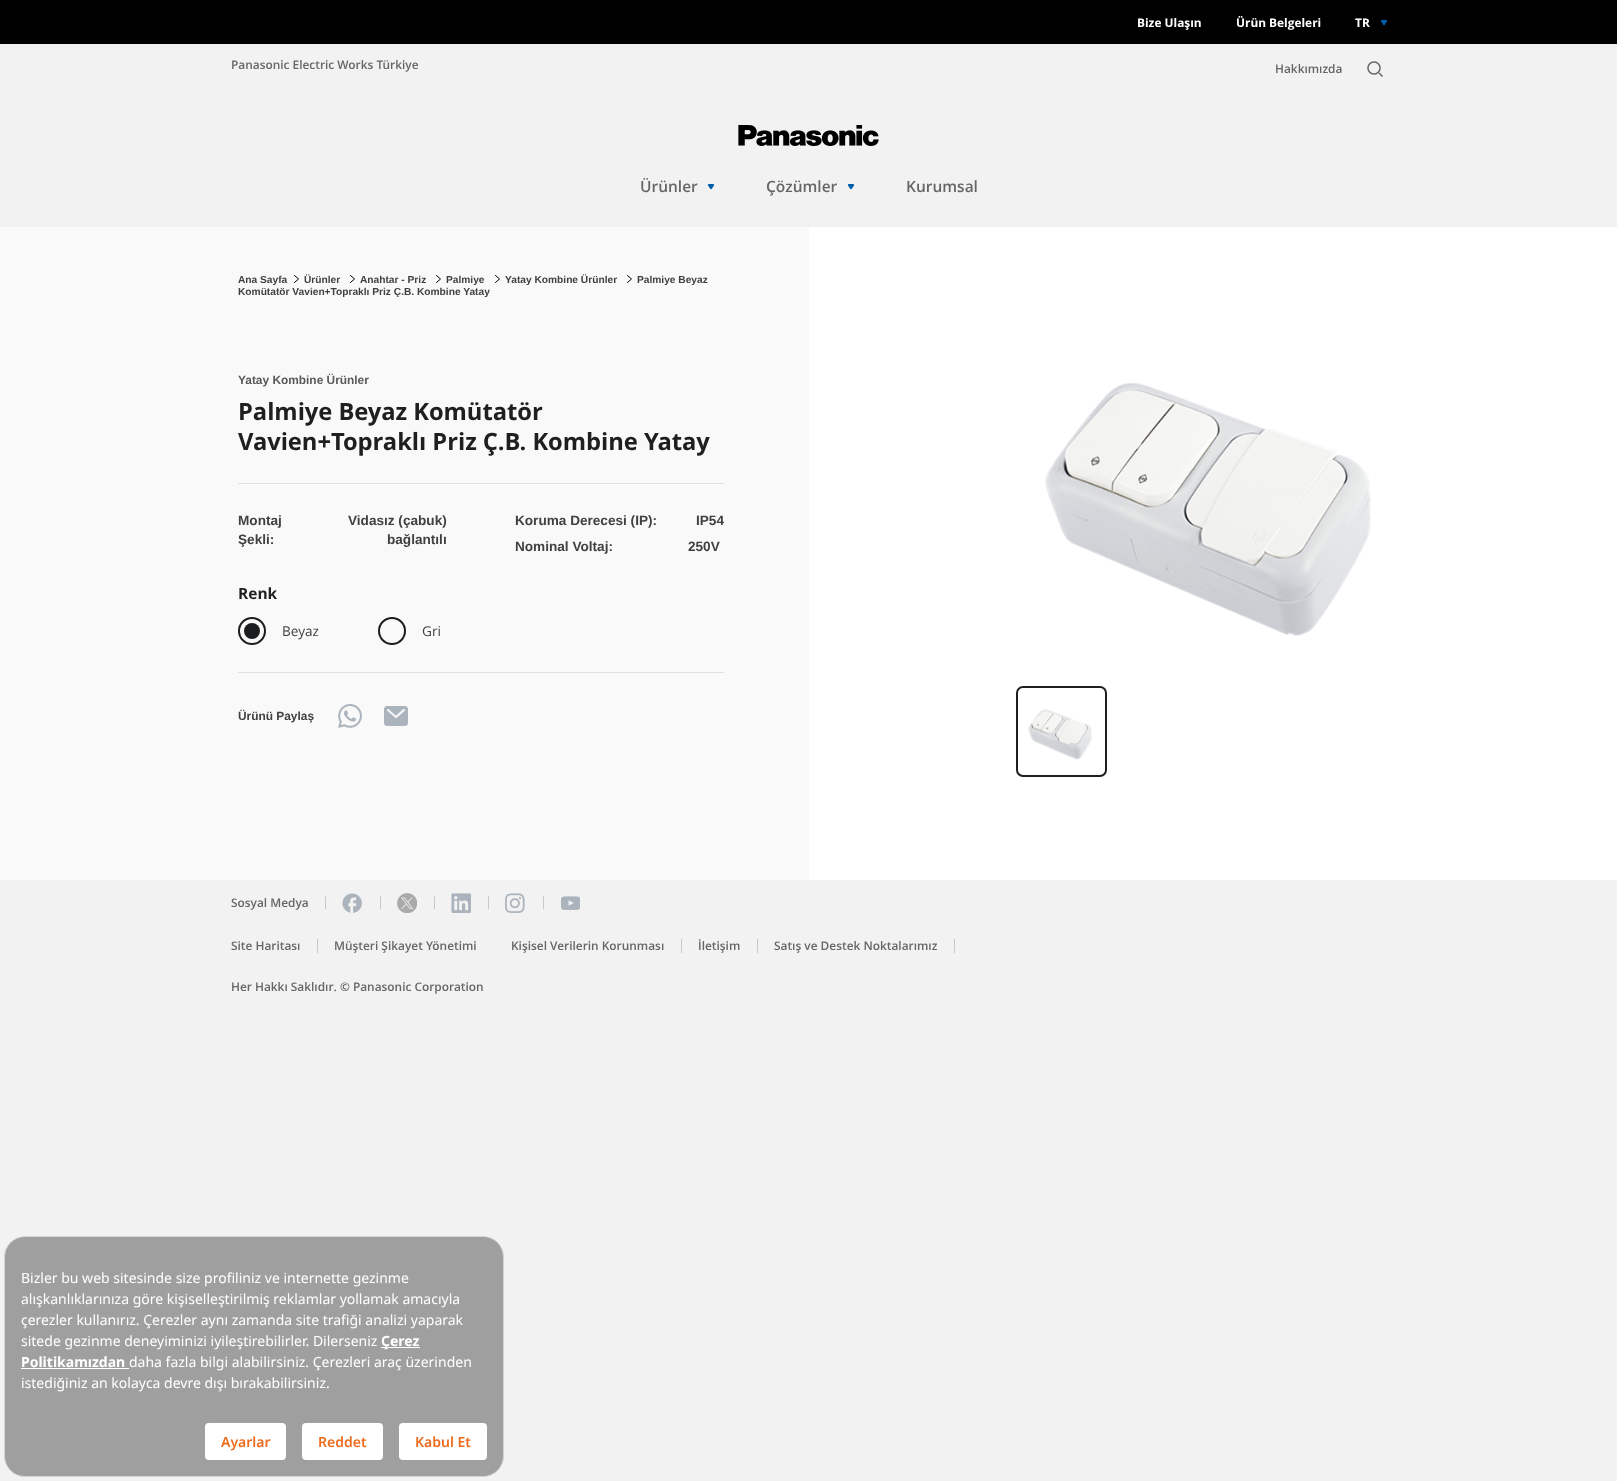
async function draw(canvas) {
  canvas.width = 1617
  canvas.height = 1481
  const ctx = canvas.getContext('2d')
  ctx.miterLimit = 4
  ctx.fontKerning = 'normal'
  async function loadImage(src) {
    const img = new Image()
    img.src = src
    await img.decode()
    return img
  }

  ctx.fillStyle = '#fff'
  ctx.fillRect(0, 0, 1617, 1481)
  ctx.fillStyle = '#000'
  ctx.fillRect(0, 0, 1617, 44)
  ctx.font = 'bold 11.9px Open Sans'
  ctx.fillStyle = '#fff'
  ctx.fillText('Bize Ulaşın', 1137, 27)
  ctx.fillText('Ürün Belgeleri', 1236, 27)
  ctx.fillText('TR', 1355, 27)
  ctx.drawImage(await loadImage('image0.png'), 1380, 20, 7, 5)
  ctx.fillStyle = '#f2f2f2'
  ctx.fillRect(0, 44, 1617, 183)
  ctx.font = '600 11.9px Open Sans'
  ctx.fillStyle = '#666'
  ctx.fillText('Panasonic Electric Works Türkiye', 231, 69)
  ctx.fillText('Hakkımızda', 1275, 73)
  ctx.drawImage(await loadImage('image1.png'), 1367, 61, 16, 16)
  ctx.drawImage(await loadImage('image2.png'), 738, 125, 141, 21)
  ctx.font = '600 15.5px Open Sans'
  ctx.fillText('Ürünler', 640, 192)
  ctx.drawImage(await loadImage('image3.png'), 707, 184, 8, 6)
  ctx.fillText('Çözümler', 766, 192)
  ctx.drawImage(await loadImage('image3.png'), 847, 184, 8, 6)
  ctx.fillText('Kurumsal', 906, 192)
  ctx.fillStyle = '#f9f9f9'
  ctx.fillRect(0, 227, 809, 653)
  ctx.font = 'bold 10.2px Liberation Sans'
  ctx.fillStyle = '#404040'
  ctx.fillText('Ana Sayfa', 238, 283)
  ctx.beginPath()
  ctx.moveTo(294.5, 275.5)
  ctx.lineTo(298.5, 279)
  ctx.lineTo(294.5, 282.5)
  ctx.strokeStyle = '#000'
  ctx.lineCap = 'round'
  ctx.lineJoin = 'round'
  ctx.stroke()
  ctx.fillText('Ürünler', 304, 283)
  ctx.beginPath()
  ctx.moveTo(350.5, 275.5)
  ctx.lineTo(354.5, 279)
  ctx.lineTo(350.5, 282.5)
  ctx.stroke()
  ctx.fillText('Anahtar - Priz', 360, 283)
  ctx.beginPath()
  ctx.moveTo(436.5, 275.5)
  ctx.lineTo(440.5, 279)
  ctx.lineTo(436.5, 282.5)
  ctx.stroke()
  ctx.fillText('Palmiye', 446, 283)
  ctx.beginPath()
  ctx.moveTo(495.5, 275.5)
  ctx.lineTo(499.5, 279)
  ctx.lineTo(495.5, 282.5)
  ctx.stroke()
  ctx.fillText('Yatay Kombine Ürünler', 505, 283)
  ctx.beginPath()
  ctx.moveTo(627.5, 275.5)
  ctx.lineTo(631.5, 279)
  ctx.lineTo(627.5, 282.5)
  ctx.stroke()
  ctx.fillText('Palmiye Beyaz', 637, 283)
  ctx.fillText('Komütatör Vavien+Topraklı Priz Ç.B. Kombine Yatay', 238, 295)
  ctx.fillStyle = '#e0e0e0'
  ctx.fillRect(238, 483, 486, 1)
  ctx.font = 'bold 11.9px Liberation Sans'
  ctx.fillStyle = '#595959'
  ctx.fillText('Yatay Kombine Ürünler', 238, 384)
  ctx.letterSpacing = '-0.05px'
  ctx.font = 'bold 23.75px Open Sans'
  ctx.fillStyle = '#1f1f1f'
  ctx.fillText('Palmiye Beyaz Komütatör', 238, 420)
  ctx.fillText('Vavien+Topraklı Priz Ç.B. Kombine Yatay', 238, 450)
  ctx.letterSpacing = '0px'
  ctx.font = 'bold 13.6px Liberation Sans'
  ctx.fillStyle = '#404040'
  ctx.fillText('Montaj', 238, 525)
  ctx.fillText('Şekli:', 238, 544)
  ctx.fillText('Vidasız (çabuk)', 348, 525)
  ctx.fillText('bağlantılı', 387, 544)
  ctx.fillText('Koruma Derecesi (IP):', 515, 525)
  ctx.fillText('IP54', 696, 525)
  ctx.fillText('Nominal Voltaj:', 515, 551)
  ctx.fillText('250V', 688, 551)
  ctx.fillStyle = '#e0e0e0'
  ctx.fillRect(238, 672, 486, 1)
  ctx.font = 'bold 15.5px Open Sans'
  ctx.fillStyle = '#1f1f1f'
  ctx.fillText('Renk', 238, 599)
  ctx.beginPath()
  ctx.arc(252, 631, 13, 0, 2 * Math.PI)
  ctx.strokeStyle = '#1c1d1e'
  ctx.lineWidth = 2
  ctx.stroke()
  ctx.fillStyle = '#1c1d1e'
  ctx.beginPath()
  ctx.arc(252, 631, 8, 0, 2 * Math.PI)
  ctx.fill()
  ctx.font = '13.6px Open Sans'
  ctx.fillStyle = '#404040'
  ctx.fillText('Beyaz', 282, 636)
  ctx.beginPath()
  ctx.arc(392, 631, 13, 0, 2 * Math.PI)
  ctx.stroke()
  ctx.fillText('Gri', 422, 636)
  ctx.font = 'bold 11.9px Liberation Sans'
  ctx.fillText('Ürünü Paylaş', 238, 720)
  ctx.drawImage(await loadImage('image4.png'), 338, 704, 24, 24)
  ctx.drawImage(await loadImage('image5.png'), 384, 706, 24, 20)
  ctx.drawImage(await loadImage('image6.png'), 1045, 382, 326, 254)
  ctx.beginPath()
  ctx.roundRect(1017, 687, 89, 89, 6)
  ctx.strokeStyle = '#1f1f1f'
  ctx.lineJoin = 'miter'
  ctx.stroke()
  ctx.drawImage(await loadImage('image7.png'), 1028, 709, 64, 51)
  ctx.fillStyle = '#f2f2f2'
  ctx.fillRect(0, 880, 1617, 601)
  ctx.font = '600 11.9px Open Sans'
  ctx.fillStyle = '#666'
  ctx.fillText('Sosyal Medya', 231, 907)
  ctx.fillStyle = '#c9c9c9'
  ctx.fillRect(325, 896, 1, 13)
  ctx.drawImage(await loadImage('image8.png'), 342, 893, 20, 20)
  ctx.fillRect(380, 896, 1, 13)
  ctx.drawImage(await loadImage('image9.png'), 397, 893, 20, 20)
  ctx.fillRect(434, 896, 1, 13)
  ctx.drawImage(await loadImage('image10.png'), 451, 893, 20, 20)
  ctx.fillRect(488, 896, 1, 13)
  ctx.drawImage(await loadImage('image11.png'), 505, 893, 20, 20)
  ctx.fillRect(543, 896, 1, 13)
  ctx.drawImage(await loadImage('image12.png'), 561, 896, 19, 15)
  ctx.fillStyle = '#666'
  ctx.fillText('Site Haritası', 231, 950)
  ctx.fillStyle = '#c9c9c9'
  ctx.fillRect(317, 939, 1, 14)
  ctx.fillStyle = '#666'
  ctx.fillText('Müşteri Şikayet Yönetimi', 334, 950)
  ctx.fillText('Kişisel Verilerin Korunması', 511, 950)
  ctx.fillStyle = '#c9c9c9'
  ctx.fillRect(681, 939, 1, 14)
  ctx.fillStyle = '#666'
  ctx.fillText('İletişim', 698, 950)
  ctx.fillStyle = '#c9c9c9'
  ctx.fillRect(757, 939, 1, 14)
  ctx.fillStyle = '#666'
  ctx.fillText('Satış ve Destek Noktalarımız', 774, 950)
  ctx.fillStyle = '#c9c9c9'
  ctx.fillRect(954, 939, 1, 14)
  ctx.fillStyle = '#666'
  ctx.fillText('Her Hakkı Saklıdır. © Panasonic Corporation', 231, 991)
  ctx.fillStyle = '#9f9f9f'
  ctx.beginPath()
  ctx.roundRect(4.5, 1236.5, 499, 240, 20.5)
  ctx.fill()
  ctx.strokeStyle = '#d1d5db'
  ctx.lineWidth = 1
  ctx.stroke()
  ctx.font = '14px Noto Sans'
  ctx.fillStyle = '#fff'
  ctx.fillText('Bizler bu web sitesinde size profiliniz ve internette gezinme', 21, 1283)
  ctx.fillText('alışkanlıklarınıza göre kişiselleştirilmiş reklamlar yollamak amacıyla', 21, 1304)
  ctx.fillText('çerezler kullanırız. Çerezler aynı zamanda site trafiği analizi yaparak', 21, 1325)
  ctx.fillText('sitede gezinme deneyiminizi iyileştirebilirler. Dilerseniz', 21, 1346)
  ctx.fillRect(381, 1347, 39, 1)
  ctx.font = 'bold 14px Noto Sans'
  ctx.fillText('Çerez', 381, 1346)
  ctx.fillText('Politikamızdan', 21, 1367)
  ctx.fillRect(21, 1368, 108, 1)
  ctx.font = '14px Noto Sans'
  ctx.fillText('daha fazla bilgi alabilirsiniz. Çerezleri araç üzerinden', 129, 1367)
  ctx.fillText('istediğiniz an kolayca devre dışı bırakabilirsiniz.', 21, 1388)
  ctx.beginPath()
  ctx.roundRect(205, 1423, 81, 37, 4)
  ctx.fill()
  ctx.font = '600 14px Noto Sans'
  ctx.fillStyle = '#ed6c1e'
  ctx.fillText('Ayarlar', 221, 1447)
  ctx.fillStyle = '#fff'
  ctx.beginPath()
  ctx.roundRect(302, 1423, 81, 37, 4)
  ctx.fill()
  ctx.fillStyle = '#ed6c1e'
  ctx.fillText('Reddet', 318, 1447)
  ctx.fillStyle = '#fff'
  ctx.beginPath()
  ctx.roundRect(399, 1423, 88, 37, 4)
  ctx.fill()
  ctx.fillStyle = '#ed6c1e'
  ctx.fillText('Kabul Et', 415, 1447)
}

draw(document.querySelector('canvas'))
